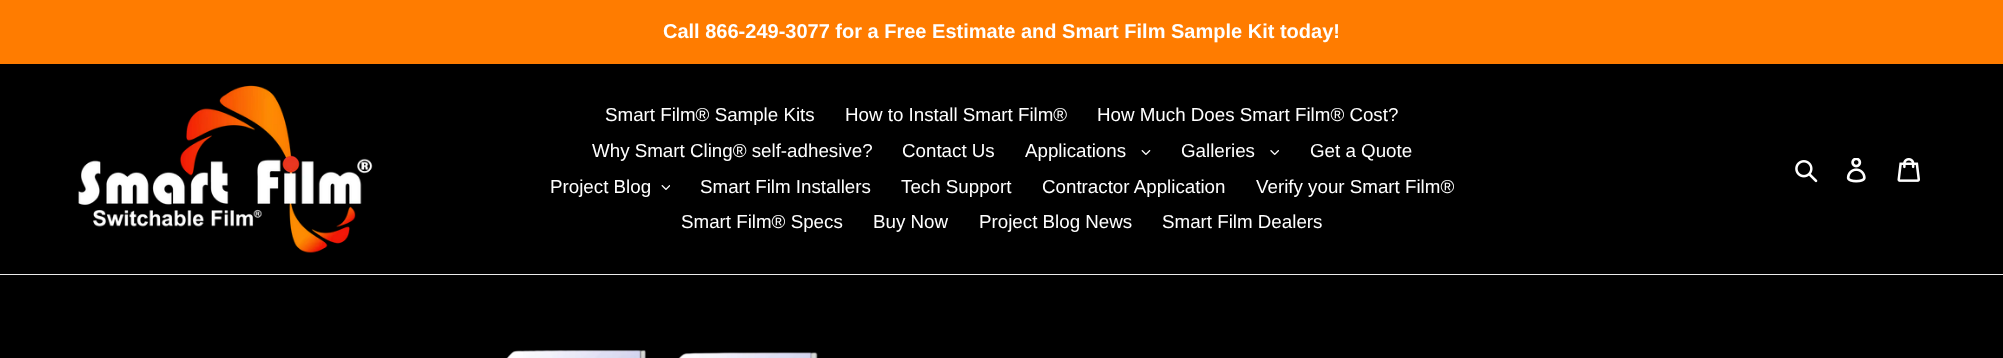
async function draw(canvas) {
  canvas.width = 2003
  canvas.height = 358
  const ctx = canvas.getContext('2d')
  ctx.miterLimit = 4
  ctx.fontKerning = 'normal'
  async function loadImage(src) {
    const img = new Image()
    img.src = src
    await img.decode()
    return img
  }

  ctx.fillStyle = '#000'
  ctx.fillRect(0, 0, 2003, 358)
  ctx.fillStyle = '#ff7c00'
  ctx.fillRect(0, 0, 2003, 64)
  ctx.font = 'bold 20px Liberation Sans'
  ctx.fillStyle = '#fff'
  ctx.fillText('Call 866-249-3077 for a Free Estimate and Smart Film Sample Kit today!', 663, 38)
  ctx.fillStyle = '#ebebeb'
  ctx.fillRect(0, 274, 2003, 1)
  ctx.drawImage(await loadImage('image0.png'), 78, 85, 295, 168)
  ctx.font = '18.75px Liberation Sans'
  ctx.fillStyle = '#fff'
  ctx.fillText('Smart Film® Sample Kits', 605, 121)
  ctx.fillText('How to Install Smart Film®', 845, 121)
  ctx.fillText('How Much Does Smart Film® Cost?', 1097, 121)
  ctx.fillText('Why Smart Cling® self-adhesive?', 592, 157)
  ctx.fillText('Contact Us', 902, 157)
  ctx.fillText('Applications', 1025, 157)
  ctx.drawImage(await loadImage('image1.png'), 1141, 150, 10, 5)
  ctx.fillText('Galleries', 1181, 157)
  ctx.drawImage(await loadImage('image2.png'), 1270, 150, 9, 5)
  ctx.fillText('Get a Quote', 1310, 157)
  ctx.fillText('Project Blog', 550, 193)
  ctx.drawImage(await loadImage('image3.png'), 661, 185, 9, 5)
  ctx.fillText('Smart Film Installers', 700, 193)
  ctx.fillText('Tech Support', 901, 193)
  ctx.fillText('Contractor Application', 1042, 193)
  ctx.fillText('Verify your Smart Film®', 1256, 193)
  ctx.fillText('Smart Film® Specs', 681, 228)
  ctx.fillText('Buy Now', 873, 228)
  ctx.fillText('Project Blog News', 979, 228)
  ctx.fillText('Smart Film Dealers', 1162, 228)
  ctx.drawImage(await loadImage('image4.png'), 1795, 160, 23, 23)
  ctx.drawImage(await loadImage('image5.png'), 1846, 158, 20, 25)
  ctx.drawImage(await loadImage('image6.png'), 1897, 158, 23, 24)
  ctx.drawImage(await loadImage('image7.png'), 506, 350, 312, 8)
  ctx.drawImage(await loadImage('image8.png'), 507, 350, 311, 8)
}

draw(document.querySelector('canvas'))
